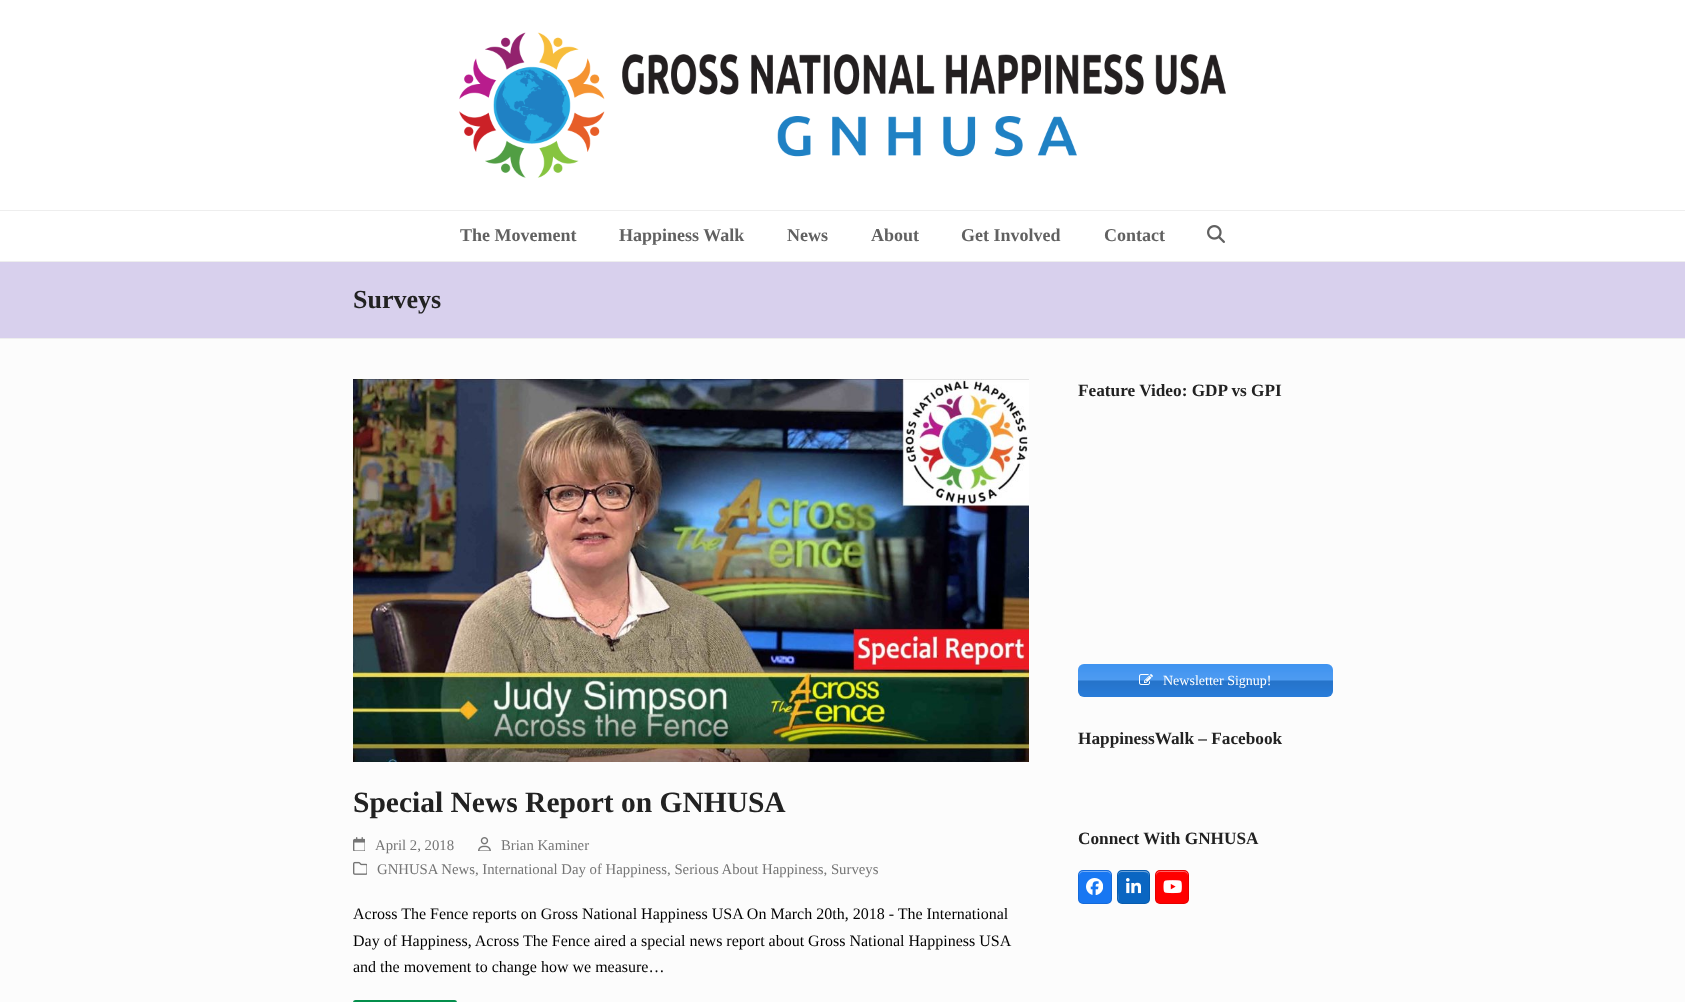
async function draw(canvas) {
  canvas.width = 1685
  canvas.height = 1002
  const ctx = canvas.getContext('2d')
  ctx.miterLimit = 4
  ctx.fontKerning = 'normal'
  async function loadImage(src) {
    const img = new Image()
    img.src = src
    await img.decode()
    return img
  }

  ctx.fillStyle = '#fcfcfc'
  ctx.fillRect(0, 0, 1685, 1002)
  ctx.fillStyle = '#fff'
  ctx.fillRect(0, 0, 1685, 261)
  ctx.drawImage(await loadImage('image0.png'), 459, 32, 767, 146)
  ctx.fillStyle = '#eee'
  ctx.fillRect(0, 210, 1685, 1)
  ctx.font = 'bold 18px Liberation Serif'
  ctx.fillStyle = '#616161'
  ctx.fillText('The Movement', 460, 241)
  ctx.fillText('Happiness Walk', 619, 241)
  ctx.fillText('News', 787, 241)
  ctx.fillText('About', 871, 241)
  ctx.fillText('Get Involved', 961, 241)
  ctx.fillText('Contact', 1104, 241)
  ctx.drawImage(await loadImage('image1.png'), 1207, 225, 18, 18)
  ctx.fillStyle = '#d8d0ed'
  ctx.fillRect(0, 262, 1685, 76)
  ctx.fillStyle = '#eee'
  ctx.fillRect(0, 261, 1685, 1)
  ctx.fillRect(0, 338, 1685, 1)
  ctx.font = 'bold 26px Liberation Serif'
  ctx.fillStyle = '#222'
  ctx.fillText('Surveys', 353, 308)
  ctx.font = 'bold 17.25px Liberation Serif'
  ctx.fillText('Feature Video: GDP vs GPI', 1078, 396)
  ctx.fillStyle = '#2d89ef'
  ctx.beginPath()
  ctx.roundRect(1078, 664, 255, 33, 6)
  ctx.fill()
  ctx.drawImage(await loadImage('image2.png'), 1078, 664, 255, 33)
  ctx.drawImage(await loadImage('image3.png'), 1139, 674, 14, 11)
  ctx.font = '14px Liberation Serif'
  ctx.fillStyle = '#fff'
  ctx.fillText('Newsletter Signup!', 1163, 685)
  ctx.font = 'bold 17.25px Liberation Serif'
  ctx.fillStyle = '#222'
  ctx.fillText('HappinessWalk – Facebook', 1078, 744)
  ctx.fillText('Connect With GNHUSA', 1078, 844)
  ctx.fillStyle = '#1877f2'
  ctx.beginPath()
  ctx.roundRect(1078, 870, 34, 34, 5)
  ctx.fill()
  ctx.fillStyle = '#74adf7'
  ctx.beginPath()
  ctx.moveTo(1083, 872)
  ctx.lineTo(1107, 872)
  ctx.bezierCurveTo(1109, 872, 1111, 874, 1111, 876)
  ctx.bezierCurveTo(1111, 870.5, 1107.5, 871, 1103, 871)
  ctx.lineTo(1087, 871)
  ctx.bezierCurveTo(1082.5, 871, 1079, 870.5, 1079, 876)
  ctx.bezierCurveTo(1079, 874, 1081, 872, 1083, 872)
  ctx.closePath()
  ctx.fill()
  ctx.beginPath()
  ctx.roundRect(1078.5, 870.5, 33, 33, 4.5)
  ctx.strokeStyle = '#0000001a'
  ctx.stroke()
  ctx.drawImage(await loadImage('image4.png'), 1086, 878, 17, 17)
  ctx.fillStyle = '#0a66c2'
  ctx.beginPath()
  ctx.roundRect(1117, 870, 33, 34, 5)
  ctx.fill()
  ctx.fillStyle = '#6ca3da'
  ctx.beginPath()
  ctx.moveTo(1122, 872)
  ctx.lineTo(1141, 872)
  ctx.bezierCurveTo(1149, 872, 1149, 873, 1149, 880)
  ctx.lineTo(1149, 875)
  ctx.bezierCurveTo(1149, 873, 1147, 871, 1145, 871)
  ctx.lineTo(1122, 871)
  ctx.bezierCurveTo(1120, 871, 1118, 873, 1118, 875)
  ctx.lineTo(1118, 875.5)
  ctx.bezierCurveTo(1118.5, 873.5, 1119.5, 872, 1122, 872)
  ctx.closePath()
  ctx.moveTo(1149, 899)
  ctx.lineTo(1149, 899.5)
  ctx.closePath()
  ctx.moveTo(1118.5, 900.5)
  ctx.lineTo(1118, 892)
  ctx.bezierCurveTo(1118, 894.5, 1117.5, 898.5, 1118.5, 900.5)
  ctx.closePath()
  ctx.fill('evenodd')
  ctx.beginPath()
  ctx.roundRect(1117.5, 870.5, 32, 33, 4.5)
  ctx.stroke()
  ctx.drawImage(await loadImage('image5.png'), 1126, 878, 15, 16)
  ctx.fillStyle = '#f00'
  ctx.beginPath()
  ctx.roundRect(1155, 870, 34, 34, 5)
  ctx.fill()
  ctx.fillStyle = '#f66'
  ctx.beginPath()
  ctx.moveTo(1160, 872)
  ctx.lineTo(1184, 872)
  ctx.bezierCurveTo(1186, 872, 1188, 874, 1188, 876)
  ctx.bezierCurveTo(1188, 870.5, 1184.5, 871, 1180, 871)
  ctx.lineTo(1164, 871)
  ctx.bezierCurveTo(1159.5, 871, 1156, 870.5, 1156, 876)
  ctx.bezierCurveTo(1156, 874, 1158, 872, 1160, 872)
  ctx.closePath()
  ctx.fill()
  ctx.beginPath()
  ctx.roundRect(1155.5, 870.5, 33, 33, 4.5)
  ctx.stroke()
  ctx.drawImage(await loadImage('image6.png'), 1163, 880, 19, 14)
  ctx.drawImage(await loadImage('image7.png'), 353, 379, 676, 383)
  ctx.font = 'bold 29.5px Liberation Serif'
  ctx.fillStyle = '#222'
  ctx.fillText('Special News Report on GNHUSA', 353, 812)
  ctx.drawImage(await loadImage('image8.png'), 353, 837, 12, 14)
  ctx.font = '14.75px Liberation Serif'
  ctx.fillStyle = '#757575'
  ctx.fillText('April 2, 2018', 375, 850)
  ctx.drawImage(await loadImage('image9.png'), 478, 837, 13, 14)
  ctx.fillText('Brian Kaminer', 501, 850)
  ctx.drawImage(await loadImage('image10.png'), 353, 861, 14, 14)
  ctx.fillText('GNHUSA News, International Day of Happiness, Serious About Happiness, Surveys', 377, 874)
  ctx.font = '16px Liberation Serif'
  ctx.fillStyle = '#000'
  ctx.fillText('Across The Fence reports on Gross National Happiness USA On March 20th, 2018 - The International', 353, 919)
  ctx.fillText('Day of Happiness, Across The Fence aired a special news report about Gross National Happiness USA', 353, 946)
  ctx.fillText('and the movement to change how we measure…', 353, 972)
  ctx.fillStyle = '#048f4c'
  ctx.beginPath()
  ctx.roundRect(353, 1000, 104, 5, 3)
  ctx.fill()
}

draw(document.querySelector('canvas'))
